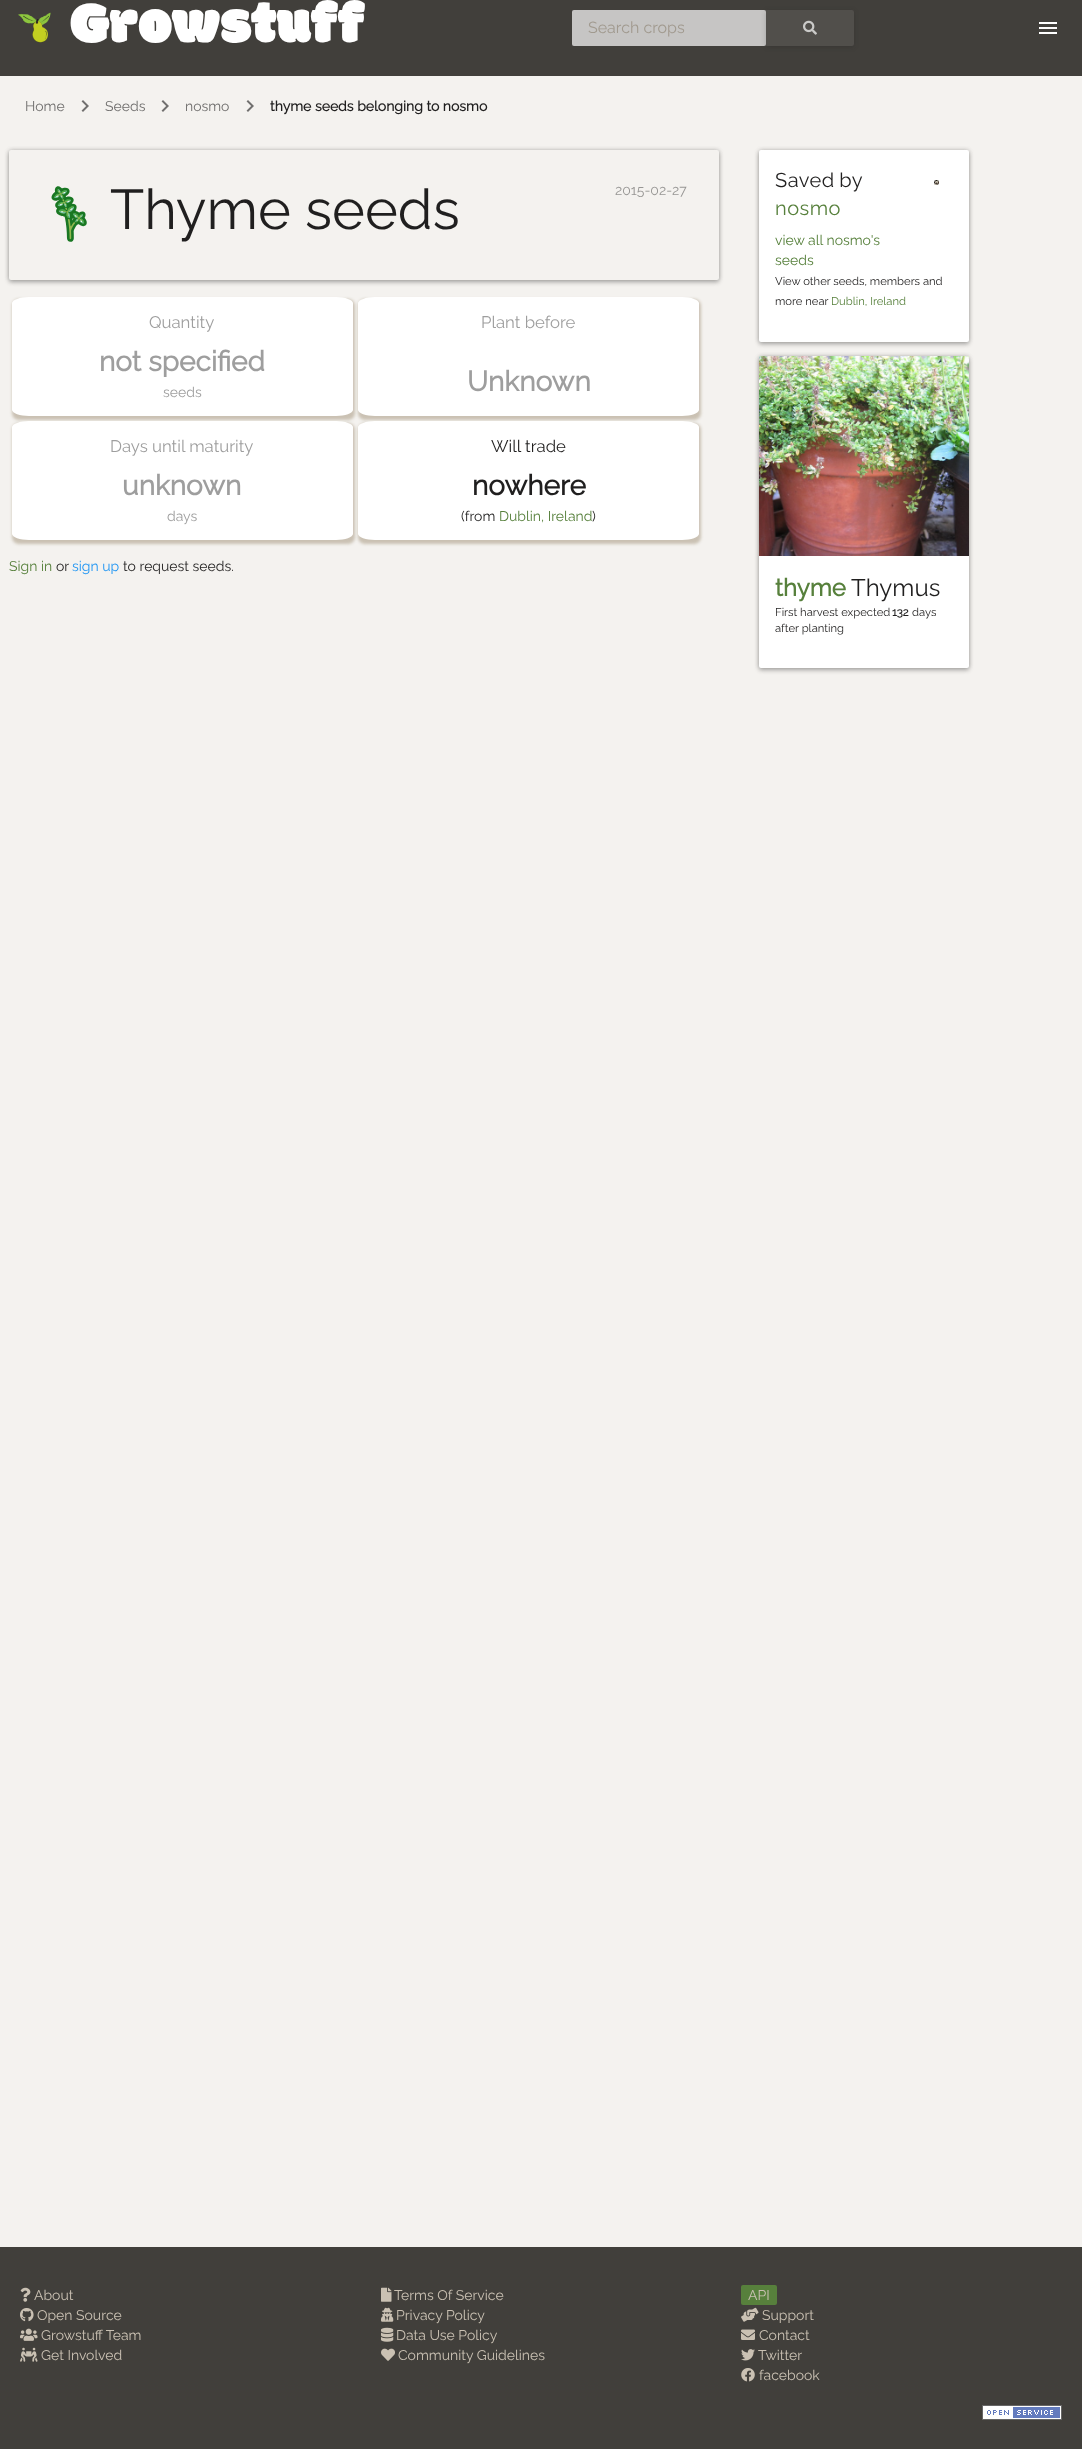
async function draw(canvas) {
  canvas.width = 1082
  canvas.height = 2449
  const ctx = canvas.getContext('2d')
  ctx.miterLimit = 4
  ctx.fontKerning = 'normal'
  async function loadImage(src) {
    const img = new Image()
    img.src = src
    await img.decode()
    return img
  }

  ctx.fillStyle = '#f4f2ef'
  ctx.fillRect(0, 0, 1082, 2449)
  ctx.fillStyle = '#413f3b'
  ctx.fillRect(0, 0, 1082, 76)
  ctx.drawImage(await loadImage('image0.png'), 18, 12, 33, 31)
  ctx.letterSpacing = '0.5px'
  ctx.font = '60px Modak'
  ctx.fillStyle = '#fff'
  ctx.fillText('Growstuff', 70, 42)
  ctx.fillStyle = '#514f4b'
  ctx.beginPath()
  ctx.roundRect(572, 10, 282, 36, 2)
  ctx.fill()
  ctx.fillStyle = '#c6c5c4'
  ctx.beginPath()
  ctx.roundRect(572, 10, 194, 36, 2)
  ctx.fill()
  ctx.letterSpacing = '0px'
  ctx.font = '100 16px Raleway'
  ctx.fillStyle = '#a19a8f'
  ctx.fillText('Search crops', 588, 33)
  ctx.save()
  ctx.beginPath()
  ctx.moveTo(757, 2)
  ctx.lineTo(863, 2)
  ctx.lineTo(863, 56)
  ctx.lineTo(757, 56)
  ctx.closePath()
  ctx.moveTo(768, 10)
  ctx.lineTo(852, 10)
  ctx.bezierCurveTo(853, 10, 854, 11, 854, 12)
  ctx.lineTo(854, 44)
  ctx.bezierCurveTo(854, 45, 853, 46, 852, 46)
  ctx.lineTo(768, 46)
  ctx.bezierCurveTo(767, 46, 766, 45, 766, 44)
  ctx.lineTo(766, 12)
  ctx.bezierCurveTo(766, 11, 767, 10, 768, 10)
  ctx.closePath()
  ctx.clip('evenodd')
  ctx.fillStyle = '#14131233'
  ctx.filter = 'blur(2.5px)'
  ctx.beginPath()
  ctx.roundRect(766, 11, 88, 36, 2)
  ctx.fill()
  ctx.filter = 'none'
  ctx.restore()
  ctx.drawImage(await loadImage('image1.png'), 803, 20, 14, 15)
  ctx.drawImage(await loadImage('image2.png'), 1039, 22, 18, 12)
  ctx.font = '100 14px Raleway'
  ctx.fillStyle = '#706f6e'
  ctx.fillText('Home', 25, 111)
  ctx.drawImage(await loadImage('image3.png'), 81, 100, 8, 12)
  ctx.fillText('Seeds', 105, 111)
  ctx.drawImage(await loadImage('image3.png'), 161, 100, 8, 12)
  ctx.fillText('nosmo', 185, 111)
  ctx.drawImage(await loadImage('image3.png'), 246, 100, 8, 12)
  ctx.font = 'bold 14px Raleway'
  ctx.fillStyle = '#201f1f'
  ctx.fillText('thyme seeds belonging to nosmo', 270, 111)
  ctx.fillStyle = '#00000033'
  ctx.filter = 'blur(2.5px)'
  ctx.beginPath()
  ctx.roundRect(9, 151, 710, 130, 2)
  ctx.fill()
  ctx.filter = 'none'
  ctx.fillStyle = '#0000001f'
  ctx.filter = 'blur(2px)'
  ctx.beginPath()
  ctx.roundRect(9, 153, 710, 130, 2)
  ctx.fill()
  ctx.filter = 'none'
  ctx.fillStyle = '#00000024'
  ctx.filter = 'blur(2px)'
  ctx.beginPath()
  ctx.roundRect(9, 150, 710, 130, 2)
  ctx.fill()
  ctx.filter = 'none'
  ctx.fillStyle = '#f4f2ef'
  ctx.beginPath()
  ctx.roundRect(9, 150, 710, 130, 2)
  ctx.fill()
  ctx.drawImage(await loadImage('image4.png'), 51, 186, 36, 56)
  ctx.font = '100 56px Raleway'
  ctx.fillStyle = '#201f1f'
  ctx.fillText('Thyme seeds', 110, 229)
  ctx.font = '100 14px Raleway'
  ctx.fillStyle = '#979694'
  ctx.fillText('2015-02-27', 615, 195)
  ctx.fillStyle = '#cac1b3'
  ctx.filter = 'blur(1.5px)'
  ctx.beginPath()
  ctx.roundRect(12, 299, 343, 121, 7)
  ctx.fill()
  ctx.filter = 'none'
  ctx.fillStyle = '#fff'
  ctx.beginPath()
  ctx.moveTo(29, 297)
  ctx.lineTo(336, 297)
  ctx.bezierCurveTo(345, 297, 353, 300, 353, 303)
  ctx.lineTo(353, 410)
  ctx.bezierCurveTo(353, 413, 345, 416, 336, 416)
  ctx.lineTo(29, 416)
  ctx.bezierCurveTo(20, 416, 12, 413, 12, 410)
  ctx.lineTo(12, 303)
  ctx.bezierCurveTo(12, 300, 20, 297, 29, 297)
  ctx.closePath()
  ctx.fill()
  ctx.font = '100 16.75px Raleway'
  ctx.fillStyle = '#9e9e9e'
  ctx.fillText('Quantity', 149, 328)
  ctx.font = 'bold 28px Raleway'
  ctx.fillText('not specified', 99, 371)
  ctx.font = '100 14px Raleway'
  ctx.fillText('seeds', 163, 397)
  ctx.fillStyle = '#cac1b3'
  ctx.filter = 'blur(1.5px)'
  ctx.beginPath()
  ctx.roundRect(358, 299, 343, 121, 7)
  ctx.fill()
  ctx.filter = 'none'
  ctx.fillStyle = '#fff'
  ctx.beginPath()
  ctx.moveTo(375, 297)
  ctx.lineTo(682, 297)
  ctx.bezierCurveTo(691, 297, 699, 300, 699, 303)
  ctx.lineTo(699, 410)
  ctx.bezierCurveTo(699, 413, 691, 416, 682, 416)
  ctx.lineTo(375, 416)
  ctx.bezierCurveTo(366, 416, 358, 413, 358, 410)
  ctx.lineTo(358, 303)
  ctx.bezierCurveTo(358, 300, 366, 297, 375, 297)
  ctx.closePath()
  ctx.fill()
  ctx.font = '100 16.75px Raleway'
  ctx.fillStyle = '#9e9e9e'
  ctx.fillText('Plant before', 481, 328)
  ctx.font = 'bold 28px Raleway'
  ctx.fillText('Unknown', 467, 391)
  ctx.fillStyle = '#cac1b3'
  ctx.filter = 'blur(1.5px)'
  ctx.beginPath()
  ctx.roundRect(12, 423, 343, 121, 7)
  ctx.fill()
  ctx.filter = 'none'
  ctx.fillStyle = '#fff'
  ctx.beginPath()
  ctx.moveTo(29, 421)
  ctx.lineTo(336, 421)
  ctx.bezierCurveTo(345, 421, 353, 424, 353, 427)
  ctx.lineTo(353, 534)
  ctx.bezierCurveTo(353, 537, 345, 540, 336, 540)
  ctx.lineTo(29, 540)
  ctx.bezierCurveTo(20, 540, 12, 537, 12, 534)
  ctx.lineTo(12, 427)
  ctx.bezierCurveTo(12, 424, 20, 421, 29, 421)
  ctx.closePath()
  ctx.fill()
  ctx.font = '100 16.75px Raleway'
  ctx.fillStyle = '#9e9e9e'
  ctx.fillText('Days until maturity', 110, 452)
  ctx.font = 'bold 28px Raleway'
  ctx.fillText('unknown', 122, 495)
  ctx.font = '100 14px Raleway'
  ctx.fillText('days', 167, 521)
  ctx.fillStyle = '#cac1b3'
  ctx.filter = 'blur(1.5px)'
  ctx.beginPath()
  ctx.roundRect(358, 423, 343, 121, 7)
  ctx.fill()
  ctx.filter = 'none'
  ctx.fillStyle = '#fff'
  ctx.beginPath()
  ctx.moveTo(375, 421)
  ctx.lineTo(682, 421)
  ctx.bezierCurveTo(691, 421, 699, 424, 699, 427)
  ctx.lineTo(699, 534)
  ctx.bezierCurveTo(699, 537, 691, 540, 682, 540)
  ctx.lineTo(375, 540)
  ctx.bezierCurveTo(366, 540, 358, 537, 358, 534)
  ctx.lineTo(358, 427)
  ctx.bezierCurveTo(358, 424, 366, 421, 375, 421)
  ctx.closePath()
  ctx.fill()
  ctx.font = '100 16.75px Raleway'
  ctx.fillStyle = '#201f1f'
  ctx.fillText('Will trade', 491, 452)
  ctx.font = 'bold 28px Raleway'
  ctx.fillText('nowhere', 472, 495)
  ctx.font = '100 14px Raleway'
  ctx.fillText('(from', 461, 521)
  ctx.fillStyle = '#57803c'
  ctx.fillText('Dublin, Ireland', 499, 521)
  ctx.fillStyle = '#201f1f'
  ctx.fillText(')', 592, 521)
  ctx.fillStyle = '#57803c'
  ctx.fillText('Sign in', 9, 571)
  ctx.fillStyle = '#201f1f'
  ctx.fillText('or', 56, 571)
  ctx.fillStyle = '#2196f3'
  ctx.fillText('sign up', 72, 571)
  ctx.fillStyle = '#201f1f'
  ctx.fillText('to request seeds.', 123, 571)
  ctx.fillStyle = '#00000033'
  ctx.filter = 'blur(2.5px)'
  ctx.beginPath()
  ctx.roundRect(759, 151, 210, 192, 2)
  ctx.fill()
  ctx.filter = 'none'
  ctx.fillStyle = '#0000001f'
  ctx.filter = 'blur(2px)'
  ctx.beginPath()
  ctx.roundRect(759, 153, 210, 192, 2)
  ctx.fill()
  ctx.filter = 'none'
  ctx.fillStyle = '#00000024'
  ctx.filter = 'blur(2px)'
  ctx.beginPath()
  ctx.roundRect(759, 150, 210, 192, 2)
  ctx.fill()
  ctx.filter = 'none'
  ctx.fillStyle = '#fff'
  ctx.beginPath()
  ctx.roundRect(759, 150, 210, 192, 2)
  ctx.fill()
  ctx.letterSpacing = '0.5px'
  ctx.wordSpacing = '-1px'
  ctx.font = '100 20px Raleway'
  ctx.fillStyle = '#201f1f'
  ctx.fillText('Saved by', 775, 187)
  ctx.wordSpacing = '0px'
  ctx.fillStyle = '#57803c'
  ctx.fillText('nosmo', 775, 215)
  ctx.letterSpacing = '0px'
  ctx.font = '100 14px Raleway'
  ctx.fillText('view all nosmo\'s', 775, 245)
  ctx.fillText('seeds', 775, 265)
  ctx.drawImage(await loadImage('image5.png'), 934, 180, 5, 5)
  ctx.font = '100 11.25px Raleway'
  ctx.fillStyle = '#201f1f'
  ctx.fillText('View other seeds, members and', 775, 285)
  ctx.fillText('more near', 775, 305)
  ctx.fillStyle = '#57803c'
  ctx.fillText('Dublin, Ireland', 831, 305)
  ctx.fillStyle = '#00000033'
  ctx.filter = 'blur(2.5px)'
  ctx.beginPath()
  ctx.roundRect(759, 357, 210, 312, 2)
  ctx.fill()
  ctx.filter = 'none'
  ctx.fillStyle = '#0000001f'
  ctx.filter = 'blur(2px)'
  ctx.beginPath()
  ctx.roundRect(759, 359, 210, 312, 2)
  ctx.fill()
  ctx.filter = 'none'
  ctx.fillStyle = '#00000024'
  ctx.filter = 'blur(2px)'
  ctx.beginPath()
  ctx.roundRect(759, 356, 210, 312, 2)
  ctx.fill()
  ctx.filter = 'none'
  ctx.fillStyle = '#fff'
  ctx.beginPath()
  ctx.roundRect(759, 356, 210, 312, 2)
  ctx.fill()
  ctx.drawImage(await loadImage('image6.png'), 759, 356, 210, 200)
  ctx.font = 'bold 24px Raleway'
  ctx.fillStyle = '#57803c'
  ctx.fillText('thyme', 775, 596)
  ctx.font = '100 24px Raleway'
  ctx.fillStyle = '#201f1f'
  ctx.fillText('Thymus', 851, 596)
  ctx.font = '100 11.25px Raleway'
  ctx.fillText('First harvest expected', 775, 616)
  ctx.font = 'bold 11.25px Raleway'
  ctx.fillText('132', 892, 616)
  ctx.font = '100 11.25px Raleway'
  ctx.fillText('days', 912, 616)
  ctx.fillText('after planting', 775, 632)
  ctx.fillStyle = '#413f3b'
  ctx.fillRect(0, 2247, 1082, 202)
  ctx.drawImage(await loadImage('image7.png'), 20, 2287, 11, 15)
  ctx.font = '100 14px Raleway'
  ctx.fillStyle = '#cac1b3'
  ctx.fillText('About', 34, 2300)
  ctx.drawImage(await loadImage('image8.png'), 20, 2308, 14, 14)
  ctx.fillText('Open Source', 37, 2320)
  ctx.drawImage(await loadImage('image9.png'), 20, 2328, 18, 13)
  ctx.fillText('Growstuff Team', 41, 2340)
  ctx.drawImage(await loadImage('image10.png'), 20, 2347, 18, 15)
  ctx.fillText('Get Involved', 41, 2360)
  ctx.drawImage(await loadImage('image11.png'), 381, 2287, 11, 15)
  ctx.fillText('Terms Of Service', 394, 2300)
  ctx.drawImage(await loadImage('image12.png'), 381, 2307, 13, 15)
  ctx.fillText('Privacy Policy', 396, 2320)
  ctx.drawImage(await loadImage('image13.png'), 381, 2327, 13, 15)
  ctx.fillText('Data Use Policy', 396, 2340)
  ctx.drawImage(await loadImage('image14.png'), 381, 2348, 14, 13)
  ctx.fillText('Community Guidelines', 398, 2360)
  ctx.fillStyle = '#57803c'
  ctx.beginPath()
  ctx.roundRect(741, 2285, 36, 20, 2)
  ctx.fill()
  ctx.fillStyle = '#cac1b3'
  ctx.fillText('API', 748, 2300)
  ctx.drawImage(await loadImage('image15.png'), 741, 2307, 18, 15)
  ctx.fillText('Support', 762, 2320)
  ctx.drawImage(await loadImage('image16.png'), 741, 2329, 14, 11)
  ctx.fillText('Contact', 759, 2340)
  ctx.drawImage(await loadImage('image17.png'), 741, 2349, 14, 12)
  ctx.fillText('Twitter', 758, 2360)
  ctx.drawImage(await loadImage('image18.png'), 741, 2368, 14, 14)
  ctx.fillText('facebook', 759, 2380)
  ctx.drawImage(await loadImage('image19.png'), 982, 2405, 80, 15)
}

draw(document.querySelector('canvas'))
